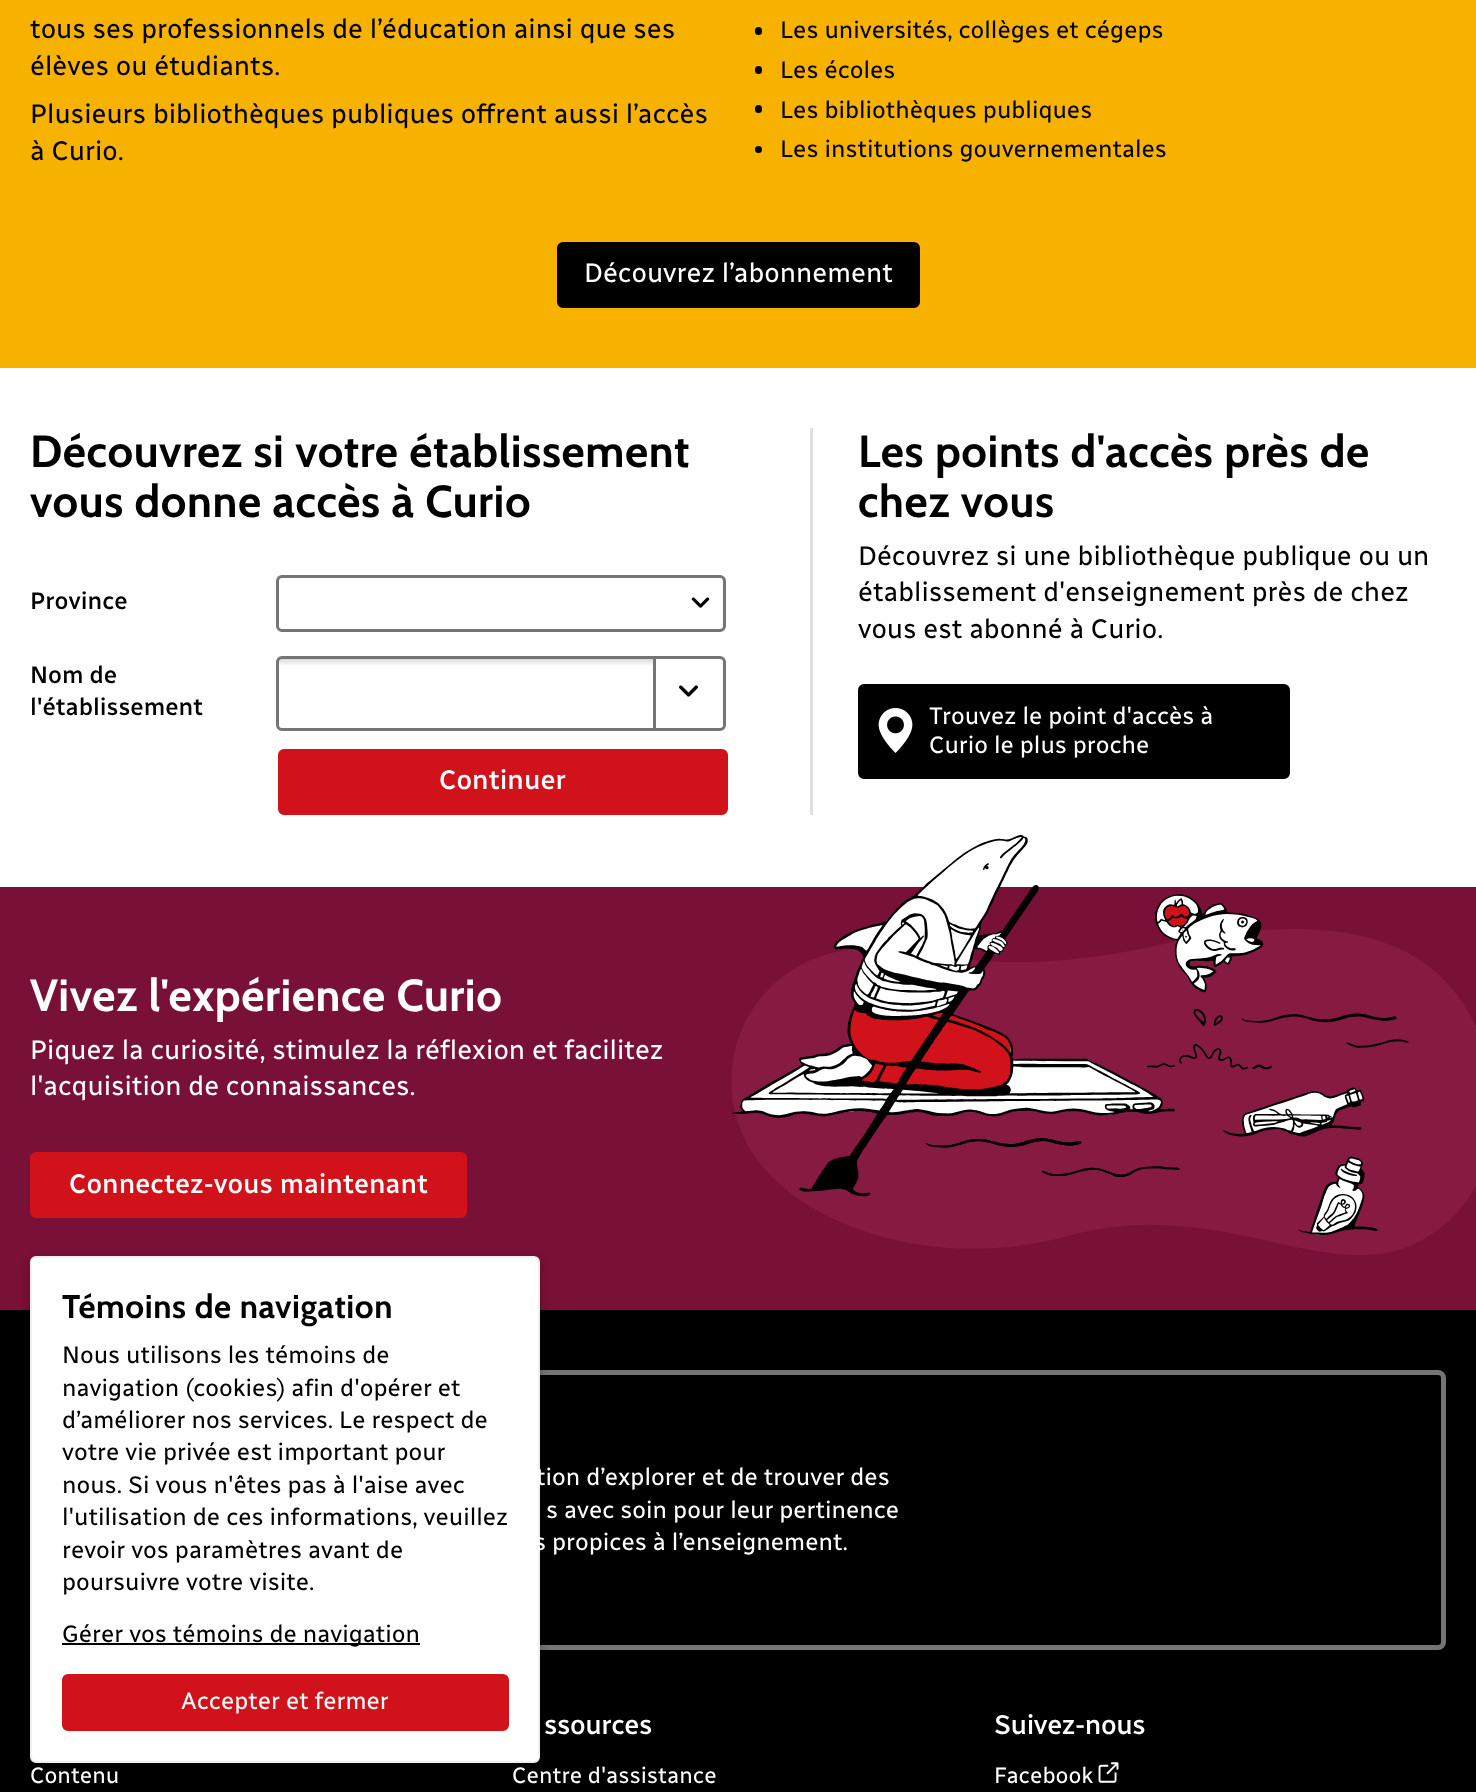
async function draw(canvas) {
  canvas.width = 1476
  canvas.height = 1792
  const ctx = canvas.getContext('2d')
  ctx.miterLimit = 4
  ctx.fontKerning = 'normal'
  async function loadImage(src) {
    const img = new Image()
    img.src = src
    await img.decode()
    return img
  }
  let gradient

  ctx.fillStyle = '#fff'
  ctx.fillRect(0, 0, 1476, 1792)
  ctx.fillStyle = '#f7b200'
  ctx.fillRect(0, 0, 1476, 368)
  ctx.font = '27px Radio Canada'
  ctx.fillStyle = '#000'
  ctx.fillText('tous ses professionnels de l’éducation ainsi que ses', 30, 38)
  ctx.fillText('élèves ou étudiants.', 30, 75)
  ctx.fillText('Plusieurs bibliothèques publiques offrent aussi l’accès', 30, 123)
  ctx.fillText('à Curio.', 30, 160)
  ctx.beginPath()
  ctx.roundRect(755, 27, 7, 8, 3.5)
  ctx.fill()
  ctx.font = '24px Radio Canada'
  ctx.fillText('Les universités, collèges et cégeps', 780, 38)
  ctx.beginPath()
  ctx.roundRect(755, 66, 7, 8, 3.5)
  ctx.fill()
  ctx.fillText('Les écoles', 780, 78)
  ctx.beginPath()
  ctx.roundRect(755, 105, 7, 8, 3.5)
  ctx.fill()
  ctx.fillText('Les bibliothèques publiques', 780, 118)
  ctx.beginPath()
  ctx.arc(758.5, 149.5, 3.5, 0, 2 * Math.PI)
  ctx.fill()
  ctx.fillText('Les institutions gouvernementales', 780, 157)
  ctx.beginPath()
  ctx.roundRect(558.5, 243.5, 360, 63, 4.5)
  ctx.fill()
  ctx.strokeStyle = '#000'
  ctx.lineWidth = 3
  ctx.stroke()
  ctx.font = '27px Radio Canada'
  ctx.fillStyle = '#fff'
  ctx.fillText('Découvrez l’abonnement', 584, 282)
  ctx.fillStyle = '#dfdfdf'
  ctx.fillRect(810, 428, 3, 387)
  ctx.letterSpacing = '0.6px'
  ctx.font = 'bold 45px Cabin'
  ctx.fillStyle = '#000'
  ctx.fillText('Découvrez si votre établissement', 30, 467)
  ctx.fillText('vous donne accès à Curio', 30, 517)
  ctx.letterSpacing = '0px'
  ctx.font = '500 24px Radio Canada'
  ctx.fillText('Province', 30, 609)
  ctx.drawImage(await loadImage('image0.png'), 691, 597, 19, 11)
  ctx.beginPath()
  ctx.roundRect(277.5, 576.5, 447, 54, 4.5)
  ctx.strokeStyle = '#757575'
  ctx.stroke()
  ctx.fillText('Nom de', 30, 683)
  ctx.fillText('l\'établissement', 30, 715)
  gradient = ctx.createLinearGradient(466, 659, 466, 728)
  gradient.addColorStop(0, '#d9d9d9')
  gradient.addColorStop(0.1, '#fff')
  ctx.fillStyle = gradient
  ctx.beginPath()
  ctx.roundRect(279, 659, 374, 69, [3, 0, 0, 3])
  ctx.fill()
  ctx.beginPath()
  ctx.roundRect(277.5, 657.5, 377, 72, [4.5, 0, 0, 4.5])
  ctx.stroke()
  ctx.fillStyle = '#fff'
  ctx.beginPath()
  ctx.roundRect(654.5, 657.5, 70, 72, [0, 4.5, 4.5, 0])
  ctx.fill()
  ctx.stroke()
  ctx.drawImage(await loadImage('image1.png'), 679, 685, 19, 12)
  ctx.fillStyle = '#d1121b'
  ctx.beginPath()
  ctx.roundRect(279.5, 750.5, 447, 63, 4.5)
  ctx.fill()
  ctx.strokeStyle = '#d1121b'
  ctx.stroke()
  ctx.font = '500 27px Radio Canada'
  ctx.fillStyle = '#fff'
  ctx.fillText('Continuer', 439, 789)
  ctx.letterSpacing = '0.6px'
  ctx.font = 'bold 45px Cabin'
  ctx.fillStyle = '#000'
  ctx.fillText('Les points d\'accès près de', 858, 467)
  ctx.fillText('chez vous', 858, 517)
  ctx.letterSpacing = '0px'
  ctx.font = '27px Radio Canada'
  ctx.fillText('Découvrez si une bibliothèque publique ou un', 858, 565)
  ctx.fillText('établissement d\'enseignement près de chez', 858, 601)
  ctx.fillText('vous est abonné à Curio.', 858, 638)
  ctx.beginPath()
  ctx.roundRect(859.5, 685.5, 429, 92, 4.5)
  ctx.fill()
  ctx.strokeStyle = '#000'
  ctx.stroke()
  ctx.drawImage(await loadImage('image2.png'), 878, 708, 35, 45)
  ctx.font = '24px Radio Canada'
  ctx.fillStyle = '#fff'
  ctx.fillText('Trouvez le point d\'accès à', 929, 724)
  ctx.fillText('Curio le plus proche', 929, 753)
  ctx.fillStyle = '#791038'
  ctx.fillRect(0, 887, 1476, 423)
  ctx.letterSpacing = '0.6px'
  ctx.font = 'bold 45px Cabin'
  ctx.fillStyle = '#fff'
  ctx.fillText('Vivez l\'expérience Curio', 30, 1011)
  ctx.letterSpacing = '0px'
  ctx.font = '27px Radio Canada'
  ctx.fillText('Piquez la curiosité, stimulez la réflexion et facilitez', 30, 1059)
  ctx.fillText('l\'acquisition de connaissances.', 30, 1095)
  ctx.fillStyle = '#d1121b'
  ctx.beginPath()
  ctx.roundRect(31.5, 1153.5, 434, 63, 4.5)
  ctx.fill()
  ctx.strokeStyle = '#d1121b'
  ctx.stroke()
  ctx.font = '500 27px Radio Canada'
  ctx.fillStyle = '#fff'
  ctx.fillText('Connectez-vous maintenant', 69, 1193)
  ctx.drawImage(await loadImage('image3.png'), 731, 835, 745, 420)
  ctx.fillStyle = '#000'
  ctx.fillRect(0, 1310, 1476, 482)
  ctx.beginPath()
  ctx.roundRect(32.5, 1372.5, 1411, 275, 5.5)
  ctx.strokeStyle = '#757575'
  ctx.lineWidth = 5
  ctx.stroke()
  ctx.fillStyle = '#0000004d'
  ctx.filter = 'blur(4.5px)'
  ctx.beginPath()
  ctx.roundRect(30, 1260, 510, 507, 6)
  ctx.fill()
  ctx.filter = 'none'
  ctx.fillStyle = '#fff'
  ctx.beginPath()
  ctx.roundRect(31, 1257, 508, 505, 5)
  ctx.fill()
  ctx.strokeStyle = '#efefef'
  ctx.lineWidth = 2
  ctx.stroke()
  ctx.letterSpacing = '0.6px'
  ctx.font = 'bold 33px Cabin'
  ctx.fillStyle = '#000'
  ctx.fillText('Témoins de navigation', 62, 1318)
  ctx.letterSpacing = '0px'
  ctx.font = '24px Radio Canada'
  ctx.fillText('Nous utilisons les témoins de', 62, 1363)
  ctx.fillText('navigation (cookies) afin d\'opérer et', 62, 1396)
  ctx.fillText('d’améliorer nos services. Le respect de', 62, 1428)
  ctx.fillText('votre vie privée est important pour', 62, 1460)
  ctx.fillText('nous. Si vous n\'êtes pas à l\'aise avec', 62, 1493)
  ctx.fillText('l\'utilisation de ces informations, veuillez', 62, 1525)
  ctx.fillText('revoir vos paramètres avant de', 62, 1558)
  ctx.fillText('poursuivre votre visite.', 62, 1590)
  ctx.fillRect(62, 1643, 358, 2)
  ctx.fillText('Gérer vos témoins de navigation', 62, 1642)
  ctx.fillStyle = '#d1121b'
  ctx.beginPath()
  ctx.roundRect(63.5, 1675.5, 444, 54, 4.5)
  ctx.fill()
  ctx.strokeStyle = '#d1121b'
  ctx.lineWidth = 3
  ctx.stroke()
  ctx.fillStyle = '#fff'
  ctx.fillText('Accepter et fermer', 181, 1709)
  ctx.fillText('tion d’explorer et de trouver des', 536, 1485)
  ctx.fillText('s avec soin pour leur pertinence', 546, 1518)
  ctx.fillText('s propices à l’enseignement.', 534, 1550)
  ctx.font = '22.5px Radio Canada'
  ctx.fillText('Contenu', 30, 1783)
  ctx.letterSpacing = '-0.4px'
  ctx.font = '500 27px Radio Canada'
  ctx.fillText('ssources', 544, 1734)
  ctx.letterSpacing = '0px'
  ctx.font = '22.5px Radio Canada'
  ctx.fillText('Centre d\'assistance', 512, 1783)
  ctx.letterSpacing = '-0.4px'
  ctx.font = '500 27px Radio Canada'
  ctx.fillText('Suivez-nous', 994, 1734)
  ctx.letterSpacing = '0px'
  ctx.font = '22.5px Radio Canada'
  ctx.fillText('Facebook', 994, 1783)
  ctx.drawImage(await loadImage('image4.png'), 1098, 1762, 21, 21)
}

draw(document.querySelector('canvas'))
